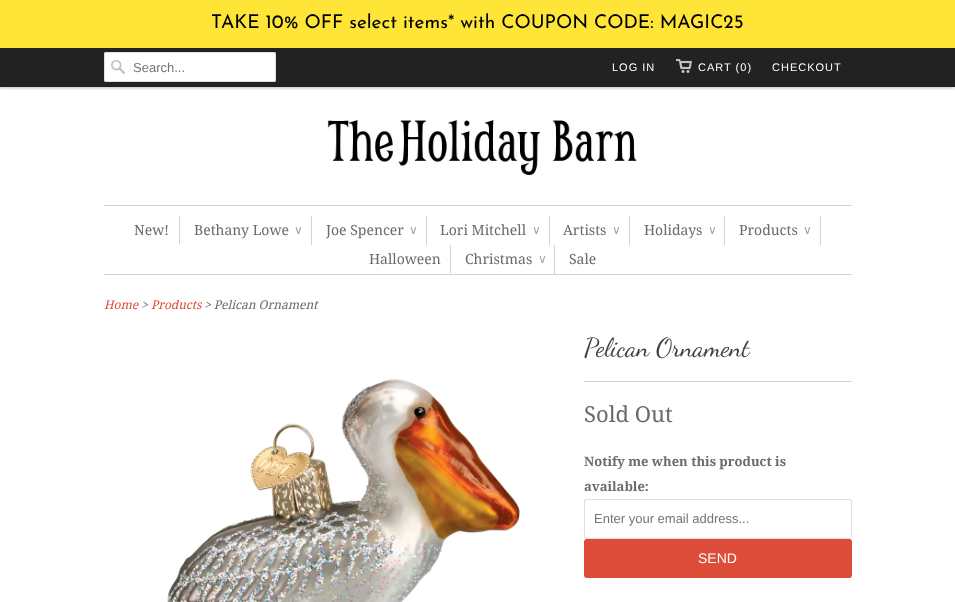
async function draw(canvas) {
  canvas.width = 955
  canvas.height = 602
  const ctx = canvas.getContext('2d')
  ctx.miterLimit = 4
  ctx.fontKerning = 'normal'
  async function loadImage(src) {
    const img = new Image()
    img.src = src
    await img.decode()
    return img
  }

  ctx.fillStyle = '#fff'
  ctx.fillRect(0, 0, 955, 602)
  ctx.fillStyle = '#00000040'
  ctx.filter = 'blur(1.5px)'
  ctx.beginPath()
  ctx.rect(0, 48, 955, 40)
  ctx.fill()
  ctx.filter = 'none'
  ctx.fillStyle = '#ffe538'
  ctx.fillRect(0, 0, 955, 48)
  ctx.font = '100 19px Josefin Sans'
  ctx.fillStyle = '#000'
  ctx.fillText('TAKE 10% OFF select items* with COUPON CODE: MAGIC25', 211, 28)
  ctx.fillStyle = '#222'
  ctx.fillRect(0, 48, 955, 38)
  ctx.fillStyle = '#1f1f1f'
  ctx.fillRect(0, 86, 955, 1)
  ctx.fillStyle = '#fff'
  ctx.beginPath()
  ctx.roundRect(104, 52, 172, 30, 2)
  ctx.fill()
  ctx.drawImage(await loadImage('image0.png'), 111, 60, 14, 14)
  ctx.beginPath()
  ctx.roundRect(104.5, 52.5, 171, 29, 1.5)
  ctx.strokeStyle = '#dfdfdf'
  ctx.stroke()
  ctx.font = '13px Liberation Sans'
  ctx.fillStyle = '#757575'
  ctx.fillText('Search...', 133, 72)
  ctx.letterSpacing = '1px'
  ctx.font = '11px Liberation Sans'
  ctx.fillStyle = '#fff'
  ctx.fillText('LOG IN', 612, 71)
  ctx.drawImage(await loadImage('image1.png'), 676, 59, 16, 14)
  ctx.fillText('CART (0)', 698, 71)
  ctx.fillText('CHECKOUT', 772, 71)
  ctx.drawImage(await loadImage('image2.png'), 327, 120, 310, 56)
  ctx.fillStyle = '#d3d3d3'
  ctx.fillRect(104, 205, 748, 1)
  ctx.fillRect(104, 274, 748, 1)
  ctx.fillRect(179, 216, 1, 28)
  ctx.letterSpacing = '0px'
  ctx.font = '14px Droid Serif'
  ctx.fillStyle = '#6b6969'
  ctx.fillText('New!', 134, 235)
  ctx.fillStyle = '#d3d3d3'
  ctx.fillRect(311, 216, 1, 29)
  ctx.fillStyle = '#6b6969'
  ctx.fillText('Bethany Lowe', 194, 235)
  ctx.font = '12px DejaVu Sans'
  ctx.fillStyle = '#a6a5a5'
  ctx.fillText('∨', 294, 234)
  ctx.fillStyle = '#d3d3d3'
  ctx.fillRect(426, 216, 1, 29)
  ctx.font = '14px Droid Serif'
  ctx.fillStyle = '#6b6969'
  ctx.fillText('Joe Spencer', 326, 235)
  ctx.font = '12px DejaVu Sans'
  ctx.fillStyle = '#a6a5a5'
  ctx.fillText('∨', 409, 234)
  ctx.fillStyle = '#d3d3d3'
  ctx.fillRect(549, 216, 1, 29)
  ctx.font = '14px Droid Serif'
  ctx.fillStyle = '#6b6969'
  ctx.fillText('Lori Mitchell', 440, 235)
  ctx.font = '12px DejaVu Sans'
  ctx.fillStyle = '#a6a5a5'
  ctx.fillText('∨', 532, 234)
  ctx.fillStyle = '#d3d3d3'
  ctx.fillRect(629, 216, 1, 29)
  ctx.font = '14px Droid Serif'
  ctx.fillStyle = '#6b6969'
  ctx.fillText('Artists', 563, 235)
  ctx.font = '12px DejaVu Sans'
  ctx.fillStyle = '#a6a5a5'
  ctx.fillText('∨', 612, 234)
  ctx.fillStyle = '#d3d3d3'
  ctx.fillRect(724, 216, 1, 29)
  ctx.font = '14px Droid Serif'
  ctx.fillStyle = '#6b6969'
  ctx.fillText('Holidays', 644, 235)
  ctx.font = '12px DejaVu Sans'
  ctx.fillStyle = '#a6a5a5'
  ctx.fillText('∨', 708, 234)
  ctx.fillStyle = '#d3d3d3'
  ctx.fillRect(820, 216, 1, 29)
  ctx.font = '14px Droid Serif'
  ctx.fillStyle = '#6b6969'
  ctx.fillText('Products', 739, 235)
  ctx.font = '12px DejaVu Sans'
  ctx.fillStyle = '#a6a5a5'
  ctx.fillText('∨', 803, 234)
  ctx.fillStyle = '#d3d3d3'
  ctx.fillRect(450, 245, 1, 28)
  ctx.font = '14px Droid Serif'
  ctx.fillStyle = '#6b6969'
  ctx.fillText('Halloween', 369, 264)
  ctx.fillStyle = '#d3d3d3'
  ctx.fillRect(554, 245, 1, 29)
  ctx.fillStyle = '#6b6969'
  ctx.fillText('Christmas', 465, 264)
  ctx.font = '12px DejaVu Sans'
  ctx.fillStyle = '#a6a5a5'
  ctx.fillText('∨', 538, 263)
  ctx.font = '14px Droid Serif'
  ctx.fillStyle = '#6b6969'
  ctx.fillText('Sale', 569, 264)
  ctx.font = 'italic 12px Droid Serif'
  ctx.fillStyle = '#dd4b39'
  ctx.fillText('Home', 104, 309)
  ctx.fillStyle = '#6b6969'
  ctx.fillText('>', 141, 309)
  ctx.fillStyle = '#dd4b39'
  ctx.fillText('Products', 151, 309)
  ctx.fillStyle = '#6b6969'
  ctx.fillText('> Pelican Ornament', 204, 309)
  ctx.drawImage(await loadImage('image3.png'), 167, 379, 353, 223)
  ctx.fillStyle = '#d3d3d3'
  ctx.fillRect(584, 381, 268, 1)
  ctx.font = '26px Dancing Script'
  ctx.fillStyle = '#404040'
  ctx.fillText('Pelican Ornament', 584, 356)
  ctx.font = '22px Droid Serif'
  ctx.fillStyle = '#6b6969'
  ctx.fillText('Sold Out', 584, 422)
  ctx.font = 'bold 13px Droid Serif'
  ctx.fillText('Notify me when this product is', 584, 466)
  ctx.fillText('available:', 584, 491)
  ctx.beginPath()
  ctx.roundRect(584.5, 499.5, 267, 39, 1.5)
  ctx.stroke()
  ctx.font = '13px Liberation Sans'
  ctx.fillStyle = '#757575'
  ctx.fillText('Enter your email address...', 594, 523)
  ctx.fillStyle = '#dd4b39'
  ctx.beginPath()
  ctx.roundRect(584, 539, 268, 39, 3)
  ctx.fill()
  ctx.font = '14px Liberation Sans'
  ctx.fillStyle = '#fff'
  ctx.fillText('SEND', 698, 563)
}

draw(document.querySelector('canvas'))
